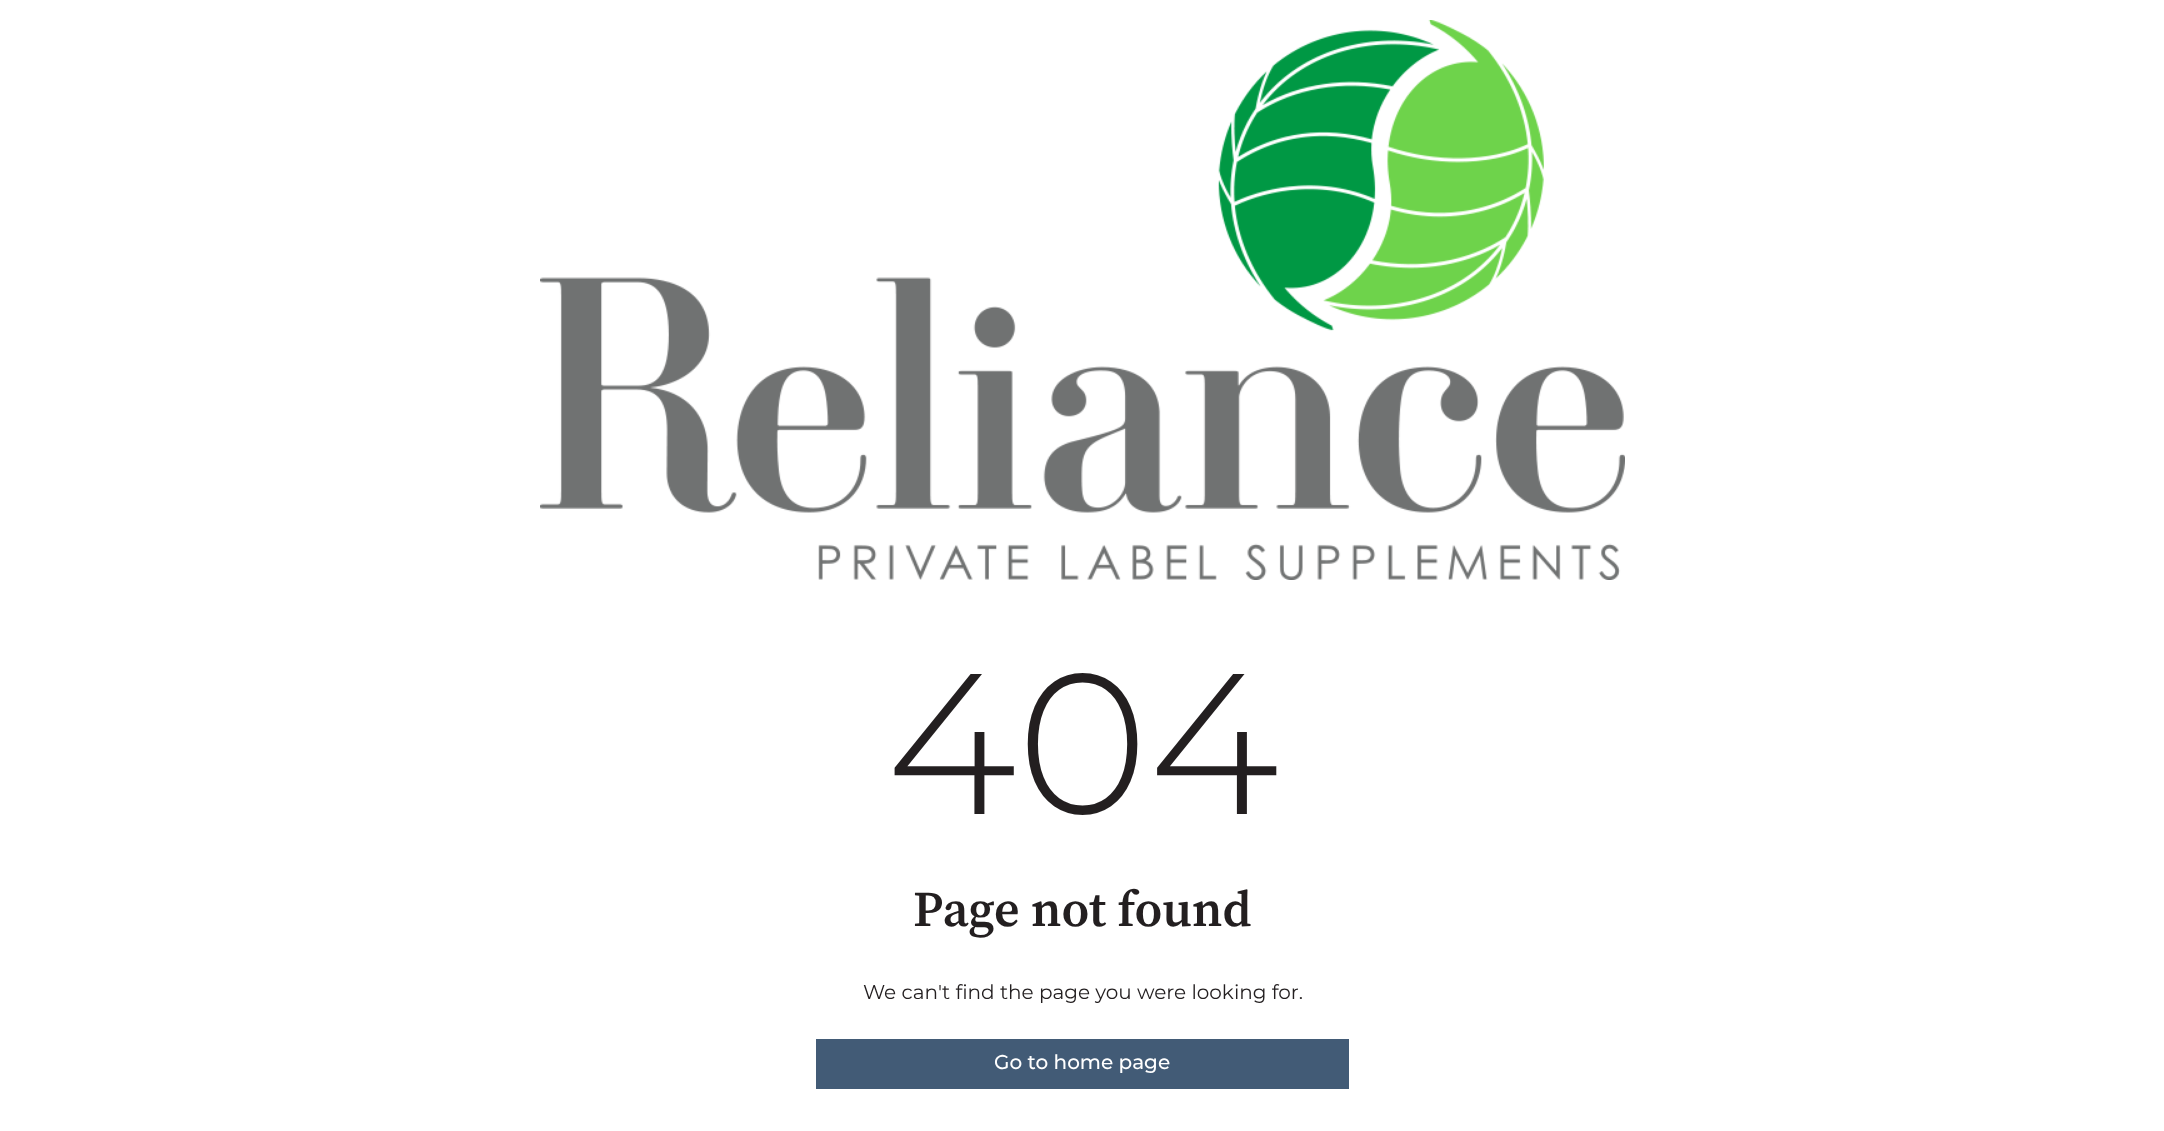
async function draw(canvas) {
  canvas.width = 2164
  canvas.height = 1131
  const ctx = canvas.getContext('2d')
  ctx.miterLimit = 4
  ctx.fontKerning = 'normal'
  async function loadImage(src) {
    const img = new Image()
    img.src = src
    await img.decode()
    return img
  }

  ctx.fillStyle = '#fff'
  ctx.fillRect(0, 0, 2164, 1131)
  ctx.drawImage(await loadImage('image0.png'), 540, 20, 1085, 560)
  ctx.font = '300 200px Montserrat'
  ctx.fillStyle = '#231f20'
  ctx.fillText('404', 886, 814)
  ctx.font = '600 50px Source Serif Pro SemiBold'
  ctx.fillText('Page not found', 913, 926)
  ctx.font = '20px Montserrat'
  ctx.fillText('We can\'t find the page you were looking for.', 863, 999)
  ctx.fillStyle = '#425b76'
  ctx.fillRect(816, 1039, 533, 50)
  ctx.font = '500 20px Montserrat'
  ctx.fillStyle = '#fff'
  ctx.fillText('Go to home page', 994, 1069)
}

draw(document.querySelector('canvas'))
